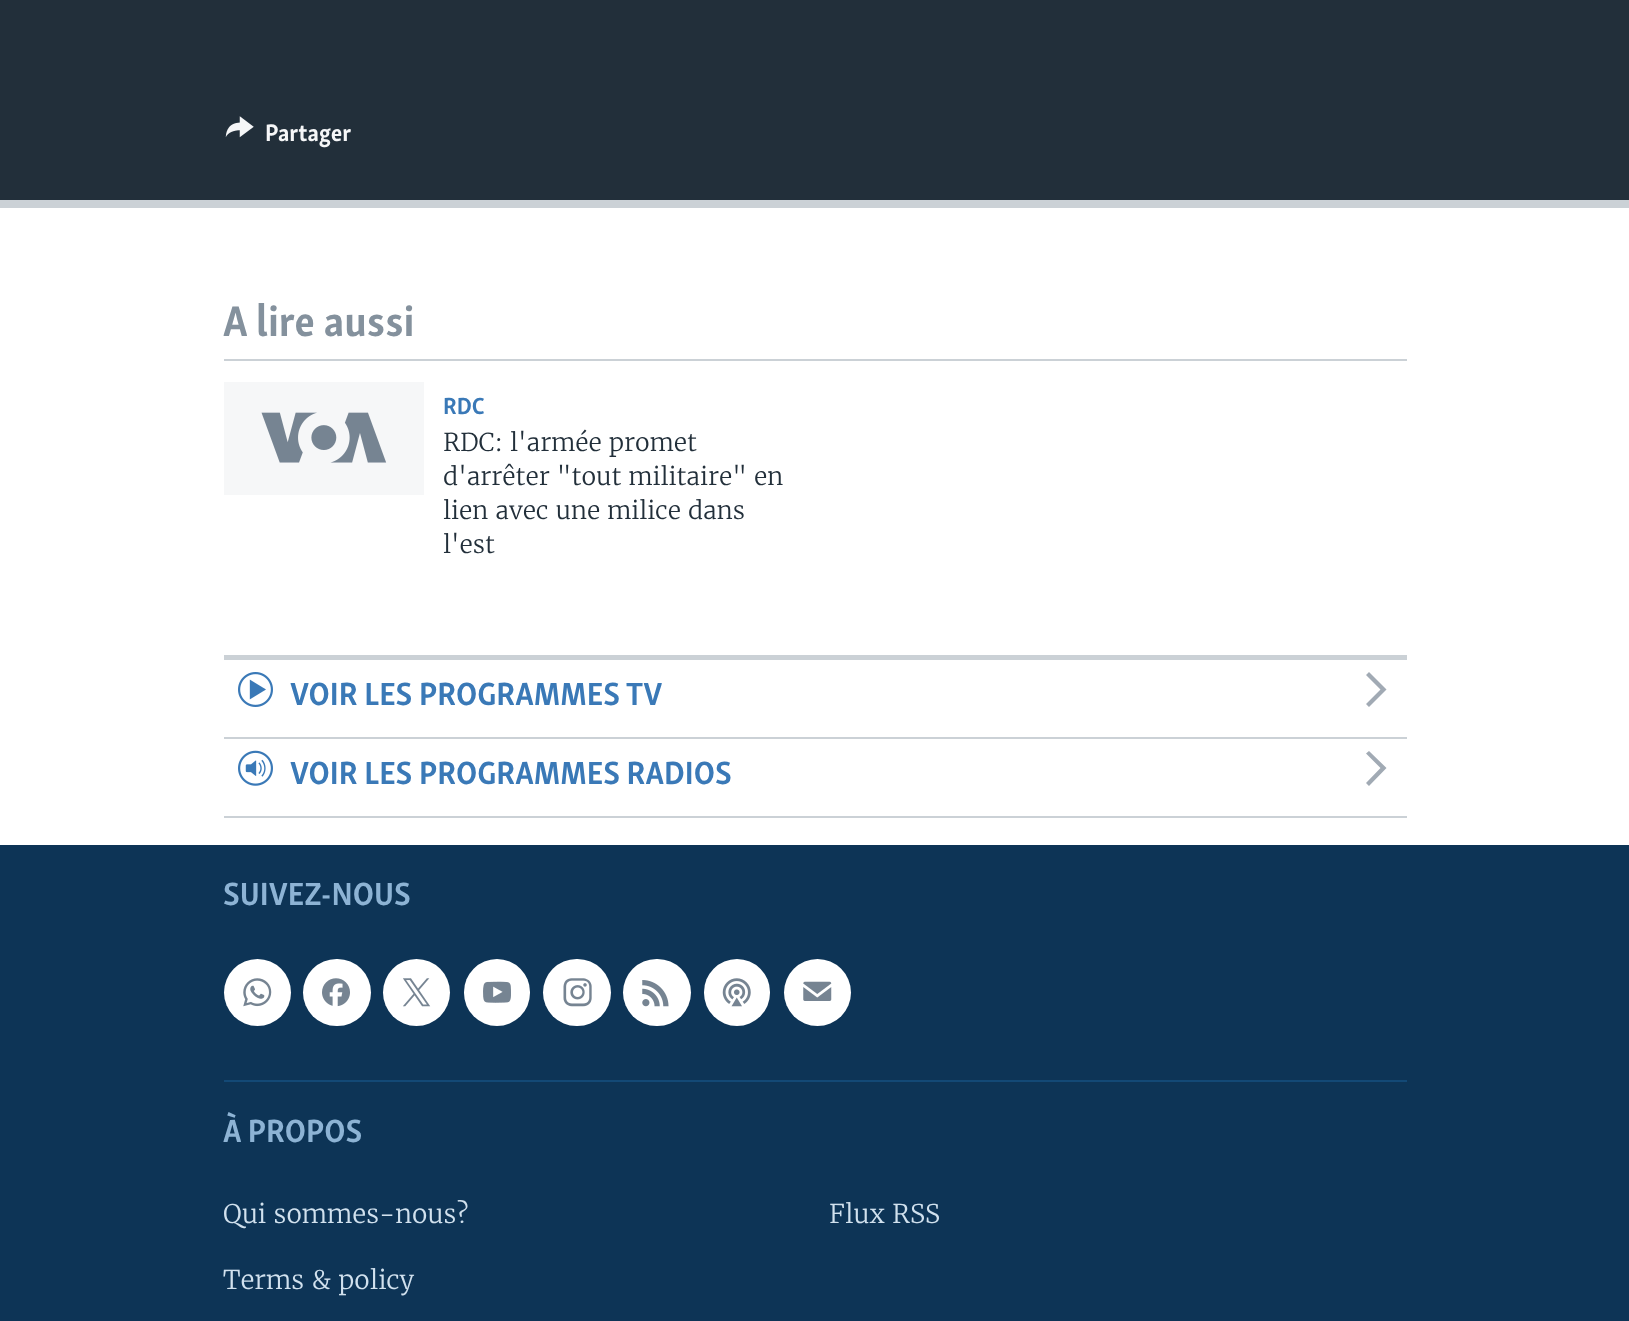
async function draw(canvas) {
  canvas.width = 1629
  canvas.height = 1321
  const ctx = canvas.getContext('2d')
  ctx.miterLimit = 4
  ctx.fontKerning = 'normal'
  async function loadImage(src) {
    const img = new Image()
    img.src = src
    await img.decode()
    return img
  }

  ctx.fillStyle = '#fff'
  ctx.fillRect(0, 0, 1629, 1321)
  ctx.fillStyle = '#222f3a'
  ctx.fillRect(0, 0, 1629, 200)
  ctx.fillStyle = '#cbd1d6'
  ctx.fillRect(0, 200, 1629, 8)
  ctx.drawImage(await loadImage('image0.png'), 225, 116, 29, 22)
  ctx.font = 'bold 24.5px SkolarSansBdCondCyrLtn'
  ctx.fillStyle = '#f6f7f8'
  ctx.fillText('Partager', 265, 141)
  ctx.fillStyle = '#cbd1d6'
  ctx.fillRect(224, 359, 1183, 2)
  ctx.font = 'bold 44px SkolarSansBdCondCyrLtn'
  ctx.fillStyle = '#84919d'
  ctx.fillText('A lire aussi', 223, 336)
  ctx.fillStyle = '#f6f7f8'
  ctx.fillRect(224, 382, 200, 113)
  ctx.drawImage(await loadImage('image1.png'), 261, 412, 126, 51)
  ctx.font = 'bold 24px SkolarSansBdCondCyrLtn'
  ctx.fillStyle = '#3a79b7'
  ctx.fillText('RDC', 443, 414)
  ctx.font = '300 24.5px Merriweather'
  ctx.fillStyle = '#222f3a'
  ctx.fillText('RDC: l\'armée promet', 443, 451)
  ctx.fillText('d\'arrêter "tout militaire" en', 443, 485)
  ctx.fillText('lien avec une milice dans', 443, 519)
  ctx.fillText('l\'est', 443, 553)
  ctx.fillStyle = '#cbd1d6'
  ctx.fillRect(224, 655, 1183, 5)
  ctx.fillRect(224, 737, 1183, 2)
  ctx.drawImage(await loadImage('image2.png'), 238, 672, 35, 35)
  ctx.font = 'bold 33px SkolarSansBdCondCyrLtn'
  ctx.fillStyle = '#3a79b7'
  ctx.fillText('VOIR LES PROGRAMMES TV', 290, 705)
  ctx.fillStyle = '#a1aab4'
  ctx.beginPath()
  ctx.moveTo(1369, 707)
  ctx.lineTo(1386.5, 689.5)
  ctx.lineTo(1369, 672)
  ctx.lineTo(1366, 675)
  ctx.lineTo(1380.5, 689.5)
  ctx.lineTo(1366, 704)
  ctx.closePath()
  ctx.fill()
  ctx.fillStyle = '#cbd1d6'
  ctx.fillRect(224, 816, 1183, 2)
  ctx.drawImage(await loadImage('image3.png'), 238, 750, 35, 36)
  ctx.fillStyle = '#3a79b7'
  ctx.fillText('VOIR LES PROGRAMMES RADIOS', 290, 784)
  ctx.fillStyle = '#a1aab4'
  ctx.beginPath()
  ctx.moveTo(1369, 786)
  ctx.lineTo(1386.5, 768)
  ctx.lineTo(1369, 751)
  ctx.lineTo(1366, 753.5)
  ctx.lineTo(1380.5, 768)
  ctx.lineTo(1366, 783)
  ctx.closePath()
  ctx.fill()
  ctx.fillStyle = '#0d3456'
  ctx.fillRect(0, 845, 1629, 476)
  ctx.fillStyle = '#8db3d4'
  ctx.fillText('SUIVEZ-NOUS', 223, 905)
  ctx.fillStyle = '#fff'
  ctx.beginPath()
  ctx.arc(257.5, 992.5, 33.5, 0, 2 * Math.PI)
  ctx.fill()
  ctx.drawImage(await loadImage('image4.png'), 243, 978, 29, 29)
  ctx.beginPath()
  ctx.roundRect(303, 959, 68, 67, 33.5)
  ctx.fill()
  ctx.drawImage(await loadImage('image5.png'), 322, 978, 28, 29)
  ctx.beginPath()
  ctx.arc(416.5, 992.5, 33.5, 0, 2 * Math.PI)
  ctx.fill()
  ctx.drawImage(await loadImage('image6.png'), 403, 978, 28, 29)
  ctx.beginPath()
  ctx.roundRect(464, 959, 66, 67, 33)
  ctx.fill()
  ctx.drawImage(await loadImage('image7.png'), 483, 981, 28, 22)
  ctx.beginPath()
  ctx.roundRect(543, 959, 68, 67, 33.5)
  ctx.fill()
  ctx.drawImage(await loadImage('image8.png'), 563, 978, 29, 29)
  ctx.beginPath()
  ctx.roundRect(623, 959, 68, 67, 33.5)
  ctx.fill()
  ctx.drawImage(await loadImage('image9.png'), 642, 980, 27, 27)
  ctx.beginPath()
  ctx.roundRect(704, 959, 66, 67, 33)
  ctx.fill()
  ctx.drawImage(await loadImage('image10.png'), 722, 978, 29, 29)
  ctx.beginPath()
  ctx.arc(817.5, 992.5, 33.5, 0, 2 * Math.PI)
  ctx.fill()
  ctx.drawImage(await loadImage('image11.png'), 803, 981, 29, 20)
  ctx.fillStyle = '#134976'
  ctx.fillRect(224, 1080, 1183, 2)
  ctx.fillStyle = '#8db3d4'
  ctx.fillText('À PROPOS', 223, 1142)
  ctx.font = '300 25.75px Merriweather'
  ctx.fillStyle = '#d1e1ee'
  ctx.fillText('Qui sommes-nous?', 223, 1223)
  ctx.fillText('Flux RSS', 829, 1223)
  ctx.fillText('Terms & policy', 223, 1289)
}

draw(document.querySelector('canvas'))
